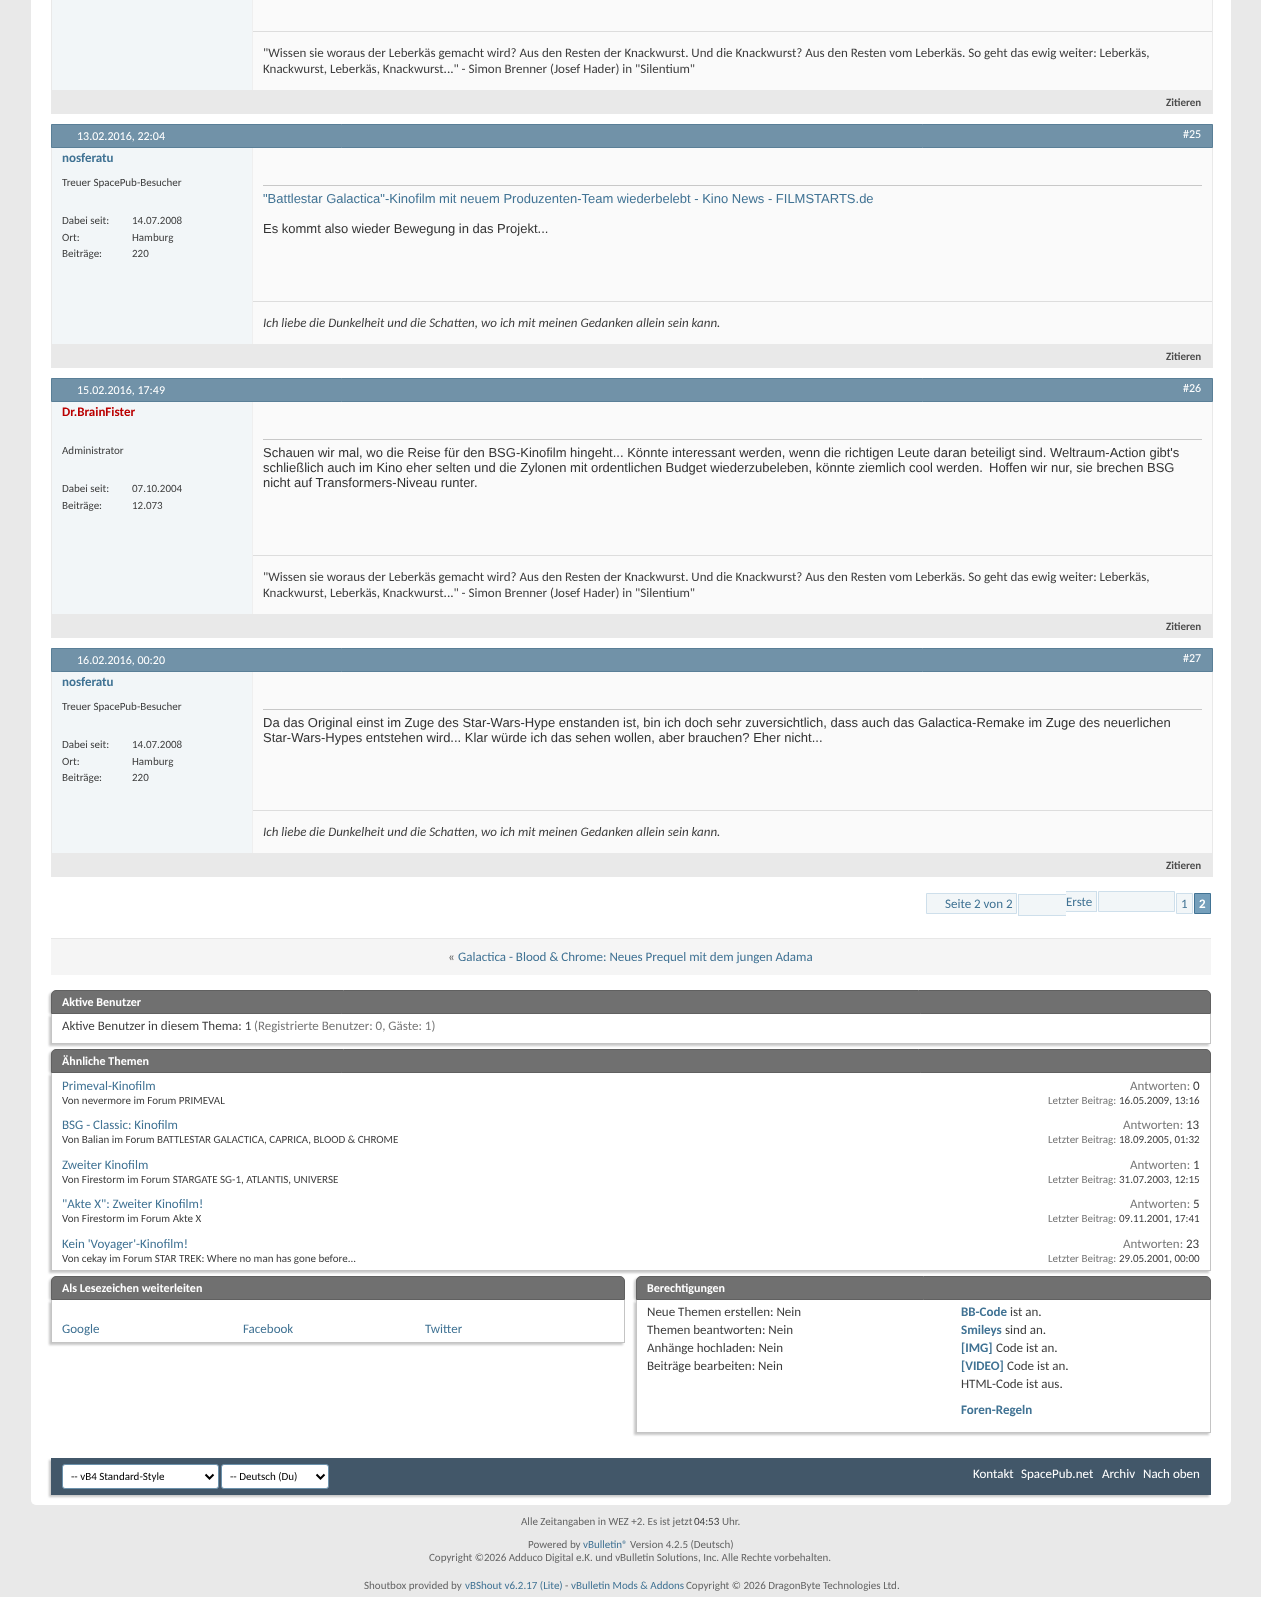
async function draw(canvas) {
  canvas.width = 1261
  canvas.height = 1597
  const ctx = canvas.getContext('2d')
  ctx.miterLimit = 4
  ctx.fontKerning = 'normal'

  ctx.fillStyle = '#e9e9e9'
  ctx.fillRect(0, 0, 1261, 1597)
  ctx.fillStyle = '#fff'
  ctx.beginPath()
  ctx.roundRect(31, -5, 1200, 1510, 5)
  ctx.fill()
  ctx.strokeStyle = '#e9e9e9'
  ctx.strokeRect(51.5, -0.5, 1161, 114)
  ctx.fillStyle = '#f2f6f8'
  ctx.fillRect(52, 0, 200, 90)
  ctx.fillStyle = '#fafafa'
  ctx.fillRect(253, 0, 959, 90)
  ctx.fillStyle = '#efefef'
  ctx.fillRect(252, 0, 1, 90)
  ctx.fillStyle = '#ddd'
  ctx.fillRect(253, 31, 959, 1)
  ctx.font = '13px Carlito'
  ctx.fillStyle = '#3e3e3e'
  ctx.fillText('"Wissen sie woraus der Leberkäs gemacht wird? Aus den Resten der Knackwurst. Und die Knackwurst? Aus den Resten vom Leberkäs. So geht das ewig weiter: Leberkäs,', 263, 57)
  ctx.fillText('Knackwurst, Leberkäs, Knackwurst..." - Simon Brenner (Josef Hader) in "Silentium"', 263, 73)
  ctx.fillStyle = '#e9e9e9'
  ctx.fillRect(52, 90, 1160, 23)
  ctx.font = 'bold 11px Carlito'
  ctx.fillStyle = '#4e4e4e'
  ctx.fillText('Zitieren', 1166, 106)
  ctx.strokeRect(51.5, 124.5, 1161, 243)
  ctx.fillStyle = '#7192a8'
  ctx.beginPath()
  ctx.rect(51.5, 124.5, 1161, 23)
  ctx.fill()
  ctx.strokeStyle = '#5a7f97'
  ctx.stroke()
  ctx.font = '12px Carlito'
  ctx.fillStyle = '#fff'
  ctx.fillText('13.02.2016, 22:04', 77, 140)
  ctx.fillText('#25', 1183, 138)
  ctx.fillStyle = '#f2f6f8'
  ctx.fillRect(52, 148, 200, 196)
  ctx.font = 'bold 13px Carlito'
  ctx.fillStyle = '#417394'
  ctx.fillText('nosferatu', 62, 162)
  ctx.font = '11px Carlito'
  ctx.fillStyle = '#3e3e3e'
  ctx.fillText('Treuer SpacePub-Besucher', 62, 186)
  ctx.fillText('Dabei seit:', 62, 224)
  ctx.fillText('14.07.2008', 132, 224)
  ctx.fillText('Ort:', 62, 241)
  ctx.fillText('Hamburg', 132, 241)
  ctx.fillText('Beiträge:', 62, 257)
  ctx.fillText('220', 132, 257)
  ctx.fillStyle = '#fafafa'
  ctx.fillRect(253, 148, 959, 196)
  ctx.fillStyle = '#efefef'
  ctx.fillRect(252, 148, 1, 196)
  ctx.fillStyle = '#c8c8c8'
  ctx.fillRect(263, 185, 939, 1)
  ctx.font = '13px Liberation Sans'
  ctx.fillStyle = '#417394'
  ctx.fillText('"Battlestar Galactica"-Kinofilm mit neuem Produzenten-Team wiederbelebt - Kino News - FILMSTARTS.de', 263, 203)
  ctx.fillStyle = '#333'
  ctx.fillText('Es kommt also wieder Bewegung in das Projekt...', 263, 233)
  ctx.fillStyle = '#ddd'
  ctx.fillRect(253, 301, 959, 1)
  ctx.font = 'italic 13px Carlito'
  ctx.fillStyle = '#3e3e3e'
  ctx.fillText('Ich liebe die Dunkelheit und die Schatten, wo ich mit meinen Gedanken allein sein kann.', 263, 327)
  ctx.fillStyle = '#e9e9e9'
  ctx.fillRect(52, 344, 1160, 23)
  ctx.font = 'bold 11px Carlito'
  ctx.fillStyle = '#4e4e4e'
  ctx.fillText('Zitieren', 1166, 360)
  ctx.strokeStyle = '#e9e9e9'
  ctx.strokeRect(51.5, 378.5, 1161, 259)
  ctx.fillStyle = '#7192a8'
  ctx.beginPath()
  ctx.rect(51.5, 378.5, 1161, 23)
  ctx.fill()
  ctx.strokeStyle = '#5a7f97'
  ctx.stroke()
  ctx.font = '12px Carlito'
  ctx.fillStyle = '#fff'
  ctx.fillText('15.02.2016, 17:49', 77, 394)
  ctx.fillText('#26', 1183, 392)
  ctx.fillStyle = '#f2f6f8'
  ctx.fillRect(52, 402, 200, 212)
  ctx.font = 'bold 13px Carlito'
  ctx.fillStyle = '#ba0000'
  ctx.fillText('Dr.BrainFister', 62, 416)
  ctx.font = '11px Carlito'
  ctx.fillStyle = '#3e3e3e'
  ctx.fillText('Administrator', 62, 454)
  ctx.fillText('Dabei seit:', 62, 492)
  ctx.fillText('07.10.2004', 132, 492)
  ctx.fillText('Beiträge:', 62, 509)
  ctx.fillText('12.073', 132, 509)
  ctx.fillStyle = '#fafafa'
  ctx.fillRect(253, 402, 959, 212)
  ctx.fillStyle = '#efefef'
  ctx.fillRect(252, 402, 1, 212)
  ctx.fillStyle = '#c8c8c8'
  ctx.fillRect(263, 439, 939, 1)
  ctx.font = '13px Liberation Sans'
  ctx.fillStyle = '#333'
  ctx.fillText('Schauen wir mal, wo die Reise für den BSG-Kinofilm hingeht... Könnte interessant werden, wenn die richtigen Leute daran beteiligt sind. Weltraum-Action gibt\'s', 263, 457)
  ctx.fillText('schließlich auch im Kino eher selten und die Zylonen mit ordentlichen Budget wiederzubeleben, könnte ziemlich cool werden.', 263, 472)
  ctx.fillText('Hoffen wir nur, sie brechen BSG', 989, 472)
  ctx.fillText('nicht auf Transformers-Niveau runter.', 263, 487)
  ctx.fillStyle = '#ddd'
  ctx.fillRect(253, 555, 959, 1)
  ctx.font = '13px Carlito'
  ctx.fillStyle = '#3e3e3e'
  ctx.fillText('"Wissen sie woraus der Leberkäs gemacht wird? Aus den Resten der Knackwurst. Und die Knackwurst? Aus den Resten vom Leberkäs. So geht das ewig weiter: Leberkäs,', 263, 581)
  ctx.fillText('Knackwurst, Leberkäs, Knackwurst..." - Simon Brenner (Josef Hader) in "Silentium"', 263, 597)
  ctx.fillStyle = '#e9e9e9'
  ctx.fillRect(52, 614, 1160, 23)
  ctx.font = 'bold 11px Carlito'
  ctx.fillStyle = '#4e4e4e'
  ctx.fillText('Zitieren', 1166, 630)
  ctx.strokeStyle = '#e9e9e9'
  ctx.strokeRect(51.5, 648.5, 1161, 228)
  ctx.fillStyle = '#7192a8'
  ctx.beginPath()
  ctx.rect(51.5, 648.5, 1161, 23)
  ctx.fill()
  ctx.strokeStyle = '#5a7f97'
  ctx.stroke()
  ctx.font = '12px Carlito'
  ctx.fillStyle = '#fff'
  ctx.fillText('16.02.2016, 00:20', 77, 664)
  ctx.fillText('#27', 1183, 662)
  ctx.fillStyle = '#f2f6f8'
  ctx.fillRect(52, 672, 200, 181)
  ctx.font = 'bold 13px Carlito'
  ctx.fillStyle = '#417394'
  ctx.fillText('nosferatu', 62, 686)
  ctx.font = '11px Carlito'
  ctx.fillStyle = '#3e3e3e'
  ctx.fillText('Treuer SpacePub-Besucher', 62, 710)
  ctx.fillText('Dabei seit:', 62, 748)
  ctx.fillText('14.07.2008', 132, 748)
  ctx.fillText('Ort:', 62, 765)
  ctx.fillText('Hamburg', 132, 765)
  ctx.fillText('Beiträge:', 62, 781)
  ctx.fillText('220', 132, 781)
  ctx.fillStyle = '#fafafa'
  ctx.fillRect(253, 672, 959, 181)
  ctx.fillStyle = '#efefef'
  ctx.fillRect(252, 672, 1, 181)
  ctx.fillStyle = '#c8c8c8'
  ctx.fillRect(263, 709, 939, 1)
  ctx.font = '13px Liberation Sans'
  ctx.fillStyle = '#333'
  ctx.fillText('Da das Original einst im Zuge des Star-Wars-Hype enstanden ist, bin ich doch sehr zuversichtlich, dass auch das Galactica-Remake im Zuge des neuerlichen', 263, 727)
  ctx.fillText('Star-Wars-Hypes entstehen wird... Klar würde ich das sehen wollen, aber brauchen? Eher nicht...', 263, 742)
  ctx.fillStyle = '#ddd'
  ctx.fillRect(253, 810, 959, 1)
  ctx.font = 'italic 13px Carlito'
  ctx.fillStyle = '#3e3e3e'
  ctx.fillText('Ich liebe die Dunkelheit und die Schatten, wo ich mit meinen Gedanken allein sein kann.', 263, 836)
  ctx.fillStyle = '#e9e9e9'
  ctx.fillRect(52, 853, 1160, 23)
  ctx.font = 'bold 11px Carlito'
  ctx.fillStyle = '#4e4e4e'
  ctx.fillText('Zitieren', 1166, 869)
  ctx.fillStyle = '#f2f6f8'
  ctx.beginPath()
  ctx.rect(926.5, 893.5, 90, 20)
  ctx.fill()
  ctx.strokeStyle = '#cedfeb'
  ctx.stroke()
  ctx.font = '13px Carlito'
  ctx.fillStyle = '#417394'
  ctx.fillText('Seite 2 von 2', 945, 908)
  ctx.fillStyle = '#f2f6f8'
  ctx.fillRect(1066, 892, 30, 19)
  ctx.fillStyle = '#417394'
  ctx.fillText('Erste', 1066, 906)
  ctx.fillStyle = '#f2f6f8'
  ctx.fillRect(1019, 895, 47, 20)
  ctx.fillStyle = '#cedfeb'
  ctx.fillRect(1018, 894, 48, 1)
  ctx.fillRect(1018, 915, 48, 1)
  ctx.fillRect(1018, 894, 1, 22)
  ctx.fillRect(1066, 891, 31, 1)
  ctx.fillRect(1096, 891, 1, 21)
  ctx.fillRect(1066, 911, 31, 1)
  ctx.fillStyle = '#f2f6f8'
  ctx.beginPath()
  ctx.rect(1098.5, 891.5, 76, 20)
  ctx.fill()
  ctx.stroke()
  ctx.beginPath()
  ctx.rect(1176.5, 893.5, 16, 20)
  ctx.fill()
  ctx.stroke()
  ctx.fillStyle = '#417394'
  ctx.fillText('1', 1181, 908)
  ctx.fillStyle = '#759fbb'
  ctx.beginPath()
  ctx.rect(1194.5, 893.5, 16, 20)
  ctx.fill()
  ctx.strokeStyle = '#417394'
  ctx.stroke()
  ctx.font = 'bold 13px Carlito'
  ctx.fillStyle = '#fff'
  ctx.fillText('2', 1199, 908)
  ctx.fillStyle = '#f5f5f5'
  ctx.fillRect(51, 939, 1160, 36)
  ctx.fillStyle = '#e7e7e7'
  ctx.fillRect(51, 938, 1160, 1)
  ctx.font = '13px Carlito'
  ctx.fillStyle = '#5d5d5d'
  ctx.fillText('«', 448, 961)
  ctx.fillStyle = '#417394'
  ctx.fillText('Galactica - Blood & Chrome: Neues Prequel mit dem jungen Adama', 458, 961)
  ctx.fillStyle = '#c8c8c8'
  ctx.filter = 'blur(1px)'
  ctx.beginPath()
  ctx.roundRect(49, 992, 1160, 24, 5)
  ctx.fill()
  ctx.filter = 'none'
  ctx.fillStyle = '#707070'
  ctx.beginPath()
  ctx.roundRect(51.5, 990.5, 1159, 23, [4.5, 4.5, 0, 0])
  ctx.fill()
  ctx.strokeStyle = '#606060'
  ctx.stroke()
  ctx.font = 'bold 12px Carlito'
  ctx.fillStyle = '#fff'
  ctx.fillText('Aktive Benutzer', 62, 1006)
  ctx.fillStyle = '#c8c8c8'
  ctx.filter = 'blur(1px)'
  ctx.beginPath()
  ctx.rect(49, 1016, 1160, 30)
  ctx.fill()
  ctx.filter = 'none'
  ctx.fillStyle = '#fff'
  ctx.fillRect(52, 1014, 1158, 29)
  ctx.fillStyle = '#c4c4c4'
  ctx.fillRect(1210, 1014, 1, 30)
  ctx.fillRect(51, 1043, 1160, 1)
  ctx.fillRect(51, 1014, 1, 30)
  ctx.font = '13px Carlito'
  ctx.fillStyle = '#3e3e3e'
  ctx.fillText('Aktive Benutzer in diesem Thema: 1', 62, 1030)
  ctx.fillStyle = '#777'
  ctx.fillText('(Registrierte Benutzer: 0, Gäste: 1)', 254, 1030)
  ctx.fillStyle = '#c8c8c8'
  ctx.filter = 'blur(1px)'
  ctx.beginPath()
  ctx.roundRect(49, 1051, 1160, 24, 5)
  ctx.fill()
  ctx.filter = 'none'
  ctx.fillStyle = '#707070'
  ctx.beginPath()
  ctx.roundRect(51.5, 1049.5, 1159, 23, [4.5, 4.5, 0, 0])
  ctx.fill()
  ctx.stroke()
  ctx.font = 'bold 12px Carlito'
  ctx.fillStyle = '#fff'
  ctx.fillText('Ähnliche Themen', 62, 1065)
  ctx.fillStyle = '#c8c8c8'
  ctx.filter = 'blur(1px)'
  ctx.beginPath()
  ctx.rect(49, 1075, 1160, 198)
  ctx.fill()
  ctx.filter = 'none'
  ctx.fillStyle = '#fff'
  ctx.fillRect(52, 1073, 1158, 197)
  ctx.fillStyle = '#c4c4c4'
  ctx.fillRect(1210, 1073, 1, 198)
  ctx.fillRect(51, 1270, 1160, 1)
  ctx.fillRect(51, 1073, 1, 198)
  ctx.font = '13px Carlito'
  ctx.fillStyle = '#417394'
  ctx.fillText('Primeval-Kinofilm', 62, 1090)
  ctx.font = '11px Carlito'
  ctx.fillStyle = '#3e3e3e'
  ctx.fillText('Von nevermore im Forum PRIMEVAL', 62, 1104)
  ctx.font = '13px Carlito'
  ctx.fillStyle = '#777'
  ctx.fillText('Antworten:', 1130, 1090)
  ctx.fillStyle = '#3e3e3e'
  ctx.fillText('0', 1193, 1090)
  ctx.font = '11px Carlito'
  ctx.fillStyle = '#777'
  ctx.fillText('Letzter Beitrag:', 1048, 1104)
  ctx.fillStyle = '#3e3e3e'
  ctx.fillText('16.05.2009, 13:16', 1119, 1104)
  ctx.font = '13px Carlito'
  ctx.fillStyle = '#417394'
  ctx.fillText('BSG - Classic: Kinofilm', 62, 1129)
  ctx.font = '11px Carlito'
  ctx.fillStyle = '#3e3e3e'
  ctx.fillText('Von Balian im Forum BATTLESTAR GALACTICA, CAPRICA, BLOOD & CHROME', 62, 1143)
  ctx.font = '13px Carlito'
  ctx.fillStyle = '#777'
  ctx.fillText('Antworten:', 1123, 1129)
  ctx.fillStyle = '#3e3e3e'
  ctx.fillText('13', 1186, 1129)
  ctx.font = '11px Carlito'
  ctx.fillStyle = '#777'
  ctx.fillText('Letzter Beitrag:', 1048, 1143)
  ctx.fillStyle = '#3e3e3e'
  ctx.fillText('18.09.2005, 01:32', 1119, 1143)
  ctx.font = '13px Carlito'
  ctx.fillStyle = '#417394'
  ctx.fillText('Zweiter Kinofilm', 62, 1169)
  ctx.font = '11px Carlito'
  ctx.fillStyle = '#3e3e3e'
  ctx.fillText('Von Firestorm im Forum STARGATE SG-1, ATLANTIS, UNIVERSE', 62, 1183)
  ctx.font = '13px Carlito'
  ctx.fillStyle = '#777'
  ctx.fillText('Antworten:', 1130, 1169)
  ctx.fillStyle = '#3e3e3e'
  ctx.fillText('1', 1193, 1169)
  ctx.font = '11px Carlito'
  ctx.fillStyle = '#777'
  ctx.fillText('Letzter Beitrag:', 1048, 1183)
  ctx.fillStyle = '#3e3e3e'
  ctx.fillText('31.07.2003, 12:15', 1119, 1183)
  ctx.font = '13px Carlito'
  ctx.fillStyle = '#417394'
  ctx.fillText('"Akte X": Zweiter Kinofilm!', 62, 1208)
  ctx.font = '11px Carlito'
  ctx.fillStyle = '#3e3e3e'
  ctx.fillText('Von Firestorm im Forum Akte X', 62, 1222)
  ctx.font = '13px Carlito'
  ctx.fillStyle = '#777'
  ctx.fillText('Antworten:', 1130, 1208)
  ctx.fillStyle = '#3e3e3e'
  ctx.fillText('5', 1193, 1208)
  ctx.font = '11px Carlito'
  ctx.fillStyle = '#777'
  ctx.fillText('Letzter Beitrag:', 1048, 1222)
  ctx.fillStyle = '#3e3e3e'
  ctx.fillText('09.11.2001, 17:41', 1119, 1222)
  ctx.font = '13px Carlito'
  ctx.fillStyle = '#417394'
  ctx.fillText('Kein \'Voyager\'-Kinofilm!', 62, 1248)
  ctx.font = '11px Carlito'
  ctx.fillStyle = '#3e3e3e'
  ctx.fillText('Von cekay im Forum STAR TREK: Where no man has gone before...', 62, 1262)
  ctx.font = '13px Carlito'
  ctx.fillStyle = '#777'
  ctx.fillText('Antworten:', 1123, 1248)
  ctx.fillStyle = '#3e3e3e'
  ctx.fillText('23', 1186, 1248)
  ctx.font = '11px Carlito'
  ctx.fillStyle = '#777'
  ctx.fillText('Letzter Beitrag:', 1048, 1262)
  ctx.fillStyle = '#3e3e3e'
  ctx.fillText('29.05.2001, 00:00', 1119, 1262)
  ctx.fillStyle = '#c8c8c8'
  ctx.filter = 'blur(1px)'
  ctx.beginPath()
  ctx.roundRect(49, 1278, 574, 24, 5)
  ctx.fill()
  ctx.filter = 'none'
  ctx.fillStyle = '#707070'
  ctx.beginPath()
  ctx.roundRect(51.5, 1276.5, 573, 23, [4.5, 4.5, 0, 0])
  ctx.fill()
  ctx.stroke()
  ctx.font = 'bold 12px Carlito'
  ctx.fillStyle = '#fff'
  ctx.fillText('Als Lesezeichen weiterleiten', 62, 1292)
  ctx.fillStyle = '#c8c8c8'
  ctx.filter = 'blur(1px)'
  ctx.beginPath()
  ctx.rect(49, 1302, 574, 43)
  ctx.fill()
  ctx.filter = 'none'
  ctx.fillStyle = '#fff'
  ctx.fillRect(52, 1300, 572, 42)
  ctx.fillStyle = '#c4c4c4'
  ctx.fillRect(624, 1300, 1, 43)
  ctx.fillRect(51, 1342, 574, 1)
  ctx.fillRect(51, 1300, 1, 43)
  ctx.font = '13px Carlito'
  ctx.fillStyle = '#417394'
  ctx.fillText('Google', 62, 1333)
  ctx.fillText('Facebook', 243, 1333)
  ctx.fillText('Twitter', 425, 1333)
  ctx.fillStyle = '#c8c8c8'
  ctx.filter = 'blur(1px)'
  ctx.beginPath()
  ctx.roundRect(634, 1278, 575, 24, 5)
  ctx.fill()
  ctx.filter = 'none'
  ctx.fillStyle = '#707070'
  ctx.beginPath()
  ctx.roundRect(636.5, 1276.5, 574, 23, [4.5, 4.5, 0, 0])
  ctx.fill()
  ctx.stroke()
  ctx.font = 'bold 12px Carlito'
  ctx.fillStyle = '#fff'
  ctx.fillText('Berechtigungen', 647, 1292)
  ctx.fillStyle = '#c8c8c8'
  ctx.filter = 'blur(1px)'
  ctx.beginPath()
  ctx.rect(634, 1302, 575, 133)
  ctx.fill()
  ctx.filter = 'none'
  ctx.fillStyle = '#fff'
  ctx.fillRect(637, 1300, 573, 132)
  ctx.fillStyle = '#c4c4c4'
  ctx.fillRect(1210, 1300, 1, 133)
  ctx.fillRect(636, 1432, 575, 1)
  ctx.fillRect(636, 1300, 1, 133)
  ctx.font = '13px Carlito'
  ctx.fillStyle = '#3e3e3e'
  ctx.fillText('Neue Themen erstellen: Nein', 647, 1316)
  ctx.fillText('Themen beantworten: Nein', 647, 1334)
  ctx.fillText('Anhänge hochladen: Nein', 647, 1352)
  ctx.fillText('Beiträge bearbeiten: Nein', 647, 1370)
  ctx.font = 'bold 13px Carlito'
  ctx.fillStyle = '#417394'
  ctx.fillText('BB-Code', 961, 1316)
  ctx.font = '13px Carlito'
  ctx.fillStyle = '#3e3e3e'
  ctx.fillText('ist an.', 1010, 1316)
  ctx.font = 'bold 13px Carlito'
  ctx.fillStyle = '#417394'
  ctx.fillText('Smileys', 961, 1334)
  ctx.font = '13px Carlito'
  ctx.fillStyle = '#3e3e3e'
  ctx.fillText('sind an.', 1005, 1334)
  ctx.font = 'bold 13px Carlito'
  ctx.fillStyle = '#417394'
  ctx.fillText('[IMG]', 961, 1352)
  ctx.font = '13px Carlito'
  ctx.fillStyle = '#3e3e3e'
  ctx.fillText('Code ist an.', 996, 1352)
  ctx.font = 'bold 13px Carlito'
  ctx.fillStyle = '#417394'
  ctx.fillText('[VIDEO]', 961, 1370)
  ctx.font = '13px Carlito'
  ctx.fillStyle = '#3e3e3e'
  ctx.fillText('Code ist an.', 1007, 1370)
  ctx.fillText('HTML-Code ist aus.', 961, 1388)
  ctx.font = 'bold 13px Carlito'
  ctx.fillStyle = '#417394'
  ctx.fillText('Foren-Regeln', 961, 1414)
  ctx.fillStyle = '#c8c8c8'
  ctx.filter = 'blur(1px)'
  ctx.beginPath()
  ctx.rect(49, 1460, 1160, 37)
  ctx.fill()
  ctx.filter = 'none'
  ctx.fillStyle = '#425769'
  ctx.fillRect(51, 1458, 1160, 37)
  ctx.fillStyle = '#fff'
  ctx.beginPath()
  ctx.roundRect(62.5, 1464.5, 156, 24, 2.5)
  ctx.fill()
  ctx.strokeStyle = '#6b91ab'
  ctx.stroke()
  ctx.beginPath()
  ctx.moveTo(205.5, 1474.5)
  ctx.lineTo(209.5, 1478.5)
  ctx.lineTo(213.5, 1474.5)
  ctx.strokeStyle = '#000'
  ctx.lineWidth = 2
  ctx.stroke()
  ctx.font = '11px Carlito'
  ctx.fillStyle = '#000'
  ctx.fillText('-- vB4 Standard-Style', 71, 1480)
  ctx.fillStyle = '#fff'
  ctx.beginPath()
  ctx.roundRect(221.5, 1464.5, 107, 24, 2.5)
  ctx.fill()
  ctx.strokeStyle = '#6b91ab'
  ctx.lineWidth = 1
  ctx.stroke()
  ctx.beginPath()
  ctx.moveTo(316.5, 1474.5)
  ctx.lineTo(320.5, 1478.5)
  ctx.lineTo(324.5, 1474.5)
  ctx.strokeStyle = '#000'
  ctx.lineWidth = 2
  ctx.stroke()
  ctx.fillStyle = '#000'
  ctx.fillText('-- Deutsch (Du)', 230, 1480)
  ctx.font = '13px Carlito'
  ctx.fillStyle = '#fff'
  ctx.fillText('Kontakt', 973, 1478)
  ctx.fillText('SpacePub.net', 1021, 1478)
  ctx.fillText('Archiv', 1102, 1478)
  ctx.fillText('Nach oben', 1143, 1478)
  ctx.font = '11px Carlito'
  ctx.fillStyle = '#666'
  ctx.fillText('Alle Zeitangaben in WEZ +2. Es ist jetzt', 521, 1525)
  ctx.fillStyle = '#3e3e3e'
  ctx.fillText('04:53', 694, 1525)
  ctx.fillStyle = '#666'
  ctx.fillText('Uhr.', 722, 1525)
  ctx.fillText('Powered by', 528, 1548)
  ctx.fillStyle = '#417394'
  ctx.fillText('vBulletin®', 583, 1548)
  ctx.fillStyle = '#666'
  ctx.fillText('Version 4.2.5 (Deutsch)', 630, 1548)
  ctx.fillText('Copyright ©2026 Adduco Digital e.K. und vBulletin Solutions, Inc. Alle Rechte vorbehalten.', 429, 1561)
  ctx.fillText('Shoutbox provided by', 364, 1589)
  ctx.fillStyle = '#417394'
  ctx.fillText('vBShout v6.2.17 (Lite)', 465, 1589)
  ctx.fillStyle = '#666'
  ctx.fillText('-', 565, 1589)
  ctx.fillStyle = '#417394'
  ctx.fillText('vBulletin Mods & Addons', 571, 1589)
  ctx.fillStyle = '#666'
  ctx.fillText('Copyright © 2026 DragonByte Technologies Ltd.', 686, 1589)
}

draw(document.querySelector('canvas'))
